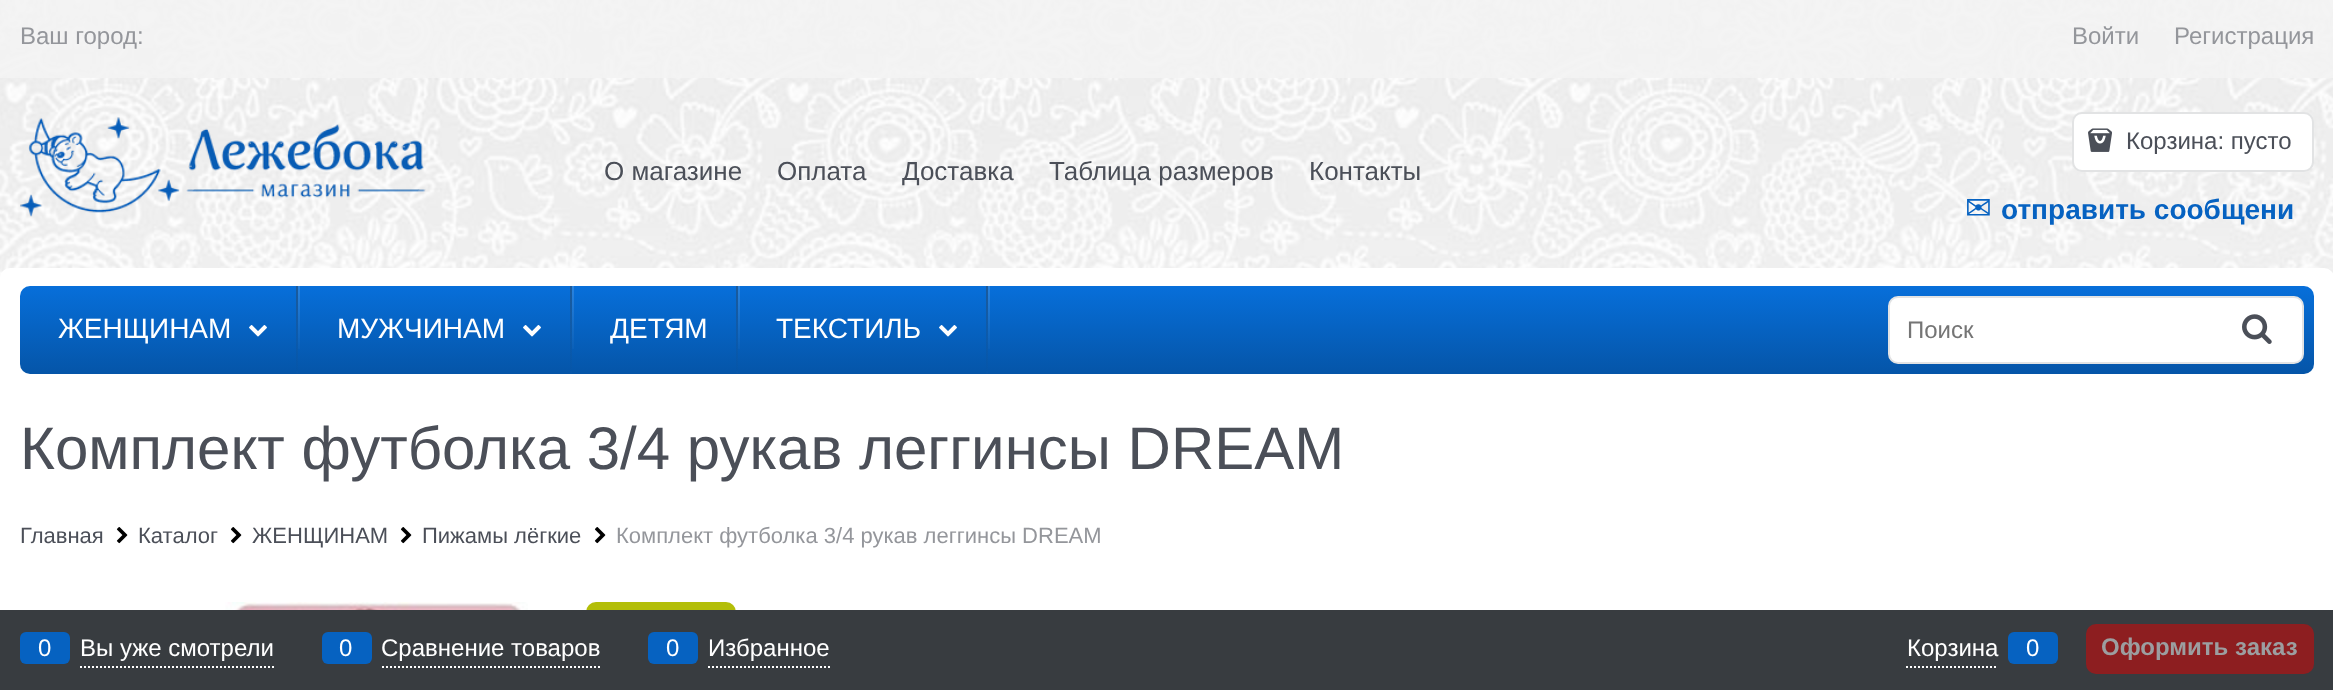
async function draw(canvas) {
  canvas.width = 2333
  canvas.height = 690
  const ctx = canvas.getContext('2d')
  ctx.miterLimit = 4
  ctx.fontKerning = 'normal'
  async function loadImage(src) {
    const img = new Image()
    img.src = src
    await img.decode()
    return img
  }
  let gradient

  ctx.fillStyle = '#fff'
  ctx.fillRect(0, 0, 2333, 690)
  ctx.drawImage(await loadImage('image0.png'), 0, 0, 2333, 278)
  ctx.fillStyle = '#f3f3f3e6'
  ctx.fillRect(0, 0, 2333, 78)
  ctx.font = '24px Liberation Sans'
  ctx.fillStyle = '#94969b'
  ctx.fillText('Ваш город:', 20, 44)
  ctx.fillText('Войти', 2072, 44)
  ctx.fillText('Регистрация', 2174, 44)
  ctx.drawImage(await loadImage('image1.png'), 20, 117, 406, 100)
  ctx.font = '26px Liberation Sans'
  ctx.fillStyle = '#4b4f58'
  ctx.fillText('О магазине', 604, 180)
  ctx.fillText('Оплата', 777, 180)
  ctx.fillText('Доставка', 902, 180)
  ctx.fillText('Таблица размеров', 1049, 180)
  ctx.fillText('Контакты', 1309, 180)
  ctx.fillStyle = '#fff'
  ctx.beginPath()
  ctx.roundRect(2073, 113, 240, 58, 9)
  ctx.fill()
  ctx.strokeStyle = '#e2e3e4'
  ctx.lineWidth = 2
  ctx.stroke()
  ctx.drawImage(await loadImage('image2.png'), 2088, 128, 24, 24)
  ctx.font = '24px Liberation Sans'
  ctx.fillStyle = '#4b4f58'
  ctx.fillText('Корзина: пусто', 2126, 149)
  ctx.font = '32px DejaVu Sans'
  ctx.fillStyle = '#0662c1'
  ctx.fillText('✉', 1965, 219)
  ctx.font = 'bold 28px Liberation Sans'
  ctx.fillText('отправить сообщени', 2001, 219)
  ctx.fillStyle = '#fff'
  ctx.beginPath()
  ctx.roundRect(0, 268, 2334, 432, 10)
  ctx.fill()
  gradient = ctx.createLinearGradient(1167, 286, 1167, 374)
  gradient.addColorStop(0, '#076fda')
  gradient.addColorStop(0.5, '#0662c1')
  gradient.addColorStop(1, '#0555a8')
  ctx.fillStyle = gradient
  ctx.beginPath()
  ctx.roundRect(20, 286, 2294, 88, 10)
  ctx.fill()
  ctx.font = '28px Liberation Sans'
  ctx.fillStyle = '#fff'
  ctx.fillText('ЖЕНЩИНАМ', 58, 338)
  ctx.drawImage(await loadImage('image3.png'), 249, 325, 18, 12)
  gradient = ctx.createLinearGradient(299, 286, 299, 374)
  gradient.addColorStop(0, '#ffffff24')
  gradient.addColorStop(0.72, '#ffffff05')
  gradient.addColorStop(1, '#ffffff00')
  ctx.fillStyle = gradient
  ctx.fillRect(298, 286, 2, 63)
  gradient = ctx.createLinearGradient(297, 286, 297, 374)
  gradient.addColorStop(0, '#39393963')
  gradient.addColorStop(0.17, '#39393954')
  gradient.addColorStop(0.61, '#3939391f')
  gradient.addColorStop(0.96, '#39393903')
  gradient.addColorStop(0.98, '#ffffff03')
  gradient.addColorStop(1, '#ffffff00')
  ctx.fillStyle = gradient
  ctx.fillRect(296, 286, 2, 88)
  ctx.fillStyle = '#fff'
  ctx.fillText('МУЖЧИНАМ', 337, 338)
  ctx.drawImage(await loadImage('image3.png'), 523, 325, 18, 12)
  gradient = ctx.createLinearGradient(573, 286, 573, 374)
  gradient.addColorStop(0, '#ffffff24')
  gradient.addColorStop(0.72, '#ffffff05')
  gradient.addColorStop(1, '#ffffff00')
  ctx.fillStyle = gradient
  ctx.fillRect(572, 286, 2, 63)
  gradient = ctx.createLinearGradient(571, 286, 571, 374)
  gradient.addColorStop(0, '#39393963')
  gradient.addColorStop(0.17, '#39393954')
  gradient.addColorStop(0.61, '#3939391f')
  gradient.addColorStop(0.96, '#39393903')
  gradient.addColorStop(0.98, '#ffffff03')
  gradient.addColorStop(1, '#ffffff00')
  ctx.fillStyle = gradient
  ctx.fillRect(570, 286, 2, 88)
  ctx.fillStyle = '#fff'
  ctx.fillText('ДЕТЯМ', 610, 338)
  gradient = ctx.createLinearGradient(739, 286, 739, 374)
  gradient.addColorStop(0, '#ffffff24')
  gradient.addColorStop(0.72, '#ffffff05')
  gradient.addColorStop(1, '#ffffff00')
  ctx.fillStyle = gradient
  ctx.fillRect(738, 286, 2, 63)
  gradient = ctx.createLinearGradient(737, 286, 737, 374)
  gradient.addColorStop(0, '#39393963')
  gradient.addColorStop(0.17, '#39393954')
  gradient.addColorStop(0.61, '#3939391f')
  gradient.addColorStop(0.96, '#39393903')
  gradient.addColorStop(0.98, '#ffffff03')
  gradient.addColorStop(1, '#ffffff00')
  ctx.fillStyle = gradient
  ctx.fillRect(736, 286, 2, 88)
  ctx.fillStyle = '#fff'
  ctx.fillText('ТЕКСТИЛЬ', 776, 338)
  ctx.drawImage(await loadImage('image3.png'), 939, 325, 18, 12)
  gradient = ctx.createLinearGradient(989, 286, 989, 374)
  gradient.addColorStop(0, '#ffffff24')
  gradient.addColorStop(0.72, '#ffffff05')
  gradient.addColorStop(1, '#ffffff00')
  ctx.fillStyle = gradient
  ctx.fillRect(988, 286, 2, 63)
  gradient = ctx.createLinearGradient(987, 286, 987, 374)
  gradient.addColorStop(0, '#39393963')
  gradient.addColorStop(0.17, '#39393954')
  gradient.addColorStop(0.61, '#3939391f')
  gradient.addColorStop(0.96, '#39393903')
  gradient.addColorStop(0.98, '#ffffff03')
  gradient.addColorStop(1, '#ffffff00')
  ctx.fillStyle = gradient
  ctx.fillRect(986, 286, 2, 88)
  ctx.fillStyle = '#fff'
  ctx.beginPath()
  ctx.roundRect(1889, 297, 414, 66, 9)
  ctx.fill()
  ctx.stroke()
  ctx.font = '24px Liberation Sans'
  ctx.fillStyle = '#757575'
  ctx.fillText('Поиск', 1907, 338)
  ctx.drawImage(await loadImage('image4.png'), 2242, 314, 30, 30)
  ctx.font = '60px Liberation Sans'
  ctx.fillStyle = '#4b4f58'
  ctx.fillText('Комплект футболка 3/4 рукав леггинсы DREAM', 20, 469)
  ctx.font = '22px Liberation Sans'
  ctx.fillText('Главная', 20, 543)
  ctx.drawImage(await loadImage('image5.png'), 116, 527, 12, 17)
  ctx.fillText('Каталог', 138, 543)
  ctx.drawImage(await loadImage('image5.png'), 230, 527, 12, 17)
  ctx.fillText('ЖЕНЩИНАМ', 252, 543)
  ctx.drawImage(await loadImage('image5.png'), 400, 527, 12, 17)
  ctx.fillText('Пижамы лёгкие', 422, 543)
  ctx.drawImage(await loadImage('image5.png'), 594, 527, 12, 17)
  ctx.fillStyle = '#94969b'
  ctx.fillText('Комплект футболка 3/4 рукав леггинсы DREAM', 616, 543)
  ctx.drawImage(await loadImage('image6.png'), 225, 602, 303, 8)
  ctx.fillStyle = '#b3be08'
  ctx.beginPath()
  ctx.roundRect(586, 602, 150, 58, 10)
  ctx.fill()
  ctx.fillStyle = '#383c40'
  ctx.fillRect(0, 610, 2333, 80)
  ctx.beginPath()
  ctx.moveTo(80, 667)
  ctx.lineTo(274, 667)
  ctx.strokeStyle = '#fff'
  ctx.setLineDash([2, 2])
  ctx.stroke()
  ctx.fillStyle = '#0662c1'
  ctx.beginPath()
  ctx.roundRect(20, 632, 50, 32, 6)
  ctx.fill()
  ctx.font = '24px Liberation Sans'
  ctx.fillStyle = '#fff'
  ctx.fillText('0', 38, 656)
  ctx.fillText('Вы уже смотрели', 80, 656)
  ctx.beginPath()
  ctx.moveTo(382, 667)
  ctx.lineTo(600, 667)
  ctx.stroke()
  ctx.fillStyle = '#0662c1'
  ctx.beginPath()
  ctx.roundRect(322, 632, 50, 32, 6)
  ctx.fill()
  ctx.fillStyle = '#fff'
  ctx.fillText('0', 339, 656)
  ctx.fillText('Сравнение товаров', 381, 656)
  ctx.beginPath()
  ctx.moveTo(708, 667)
  ctx.lineTo(830, 667)
  ctx.stroke()
  ctx.fillStyle = '#0662c1'
  ctx.beginPath()
  ctx.roundRect(648, 632, 50, 32, 6)
  ctx.fill()
  ctx.fillStyle = '#fff'
  ctx.fillText('0', 666, 656)
  ctx.fillText('Избранное', 708, 656)
  ctx.beginPath()
  ctx.moveTo(1906, 667)
  ctx.lineTo(1998, 667)
  ctx.stroke()
  ctx.fillText('Корзина', 1907, 656)
  ctx.fillStyle = '#0662c1'
  ctx.beginPath()
  ctx.roundRect(2008, 632, 50, 32, 6)
  ctx.fill()
  ctx.fillStyle = '#fff'
  ctx.fillText('0', 2026, 656)
  ctx.fillStyle = '#8d1e20'
  ctx.beginPath()
  ctx.roundRect(2086, 624, 228, 50, 10)
  ctx.fill()
  ctx.font = 'bold 24px Liberation Sans'
  ctx.fillStyle = '#9c9ea0'
  ctx.fillText('Оформить заказ', 2101, 655)
}

draw(document.querySelector('canvas'))
